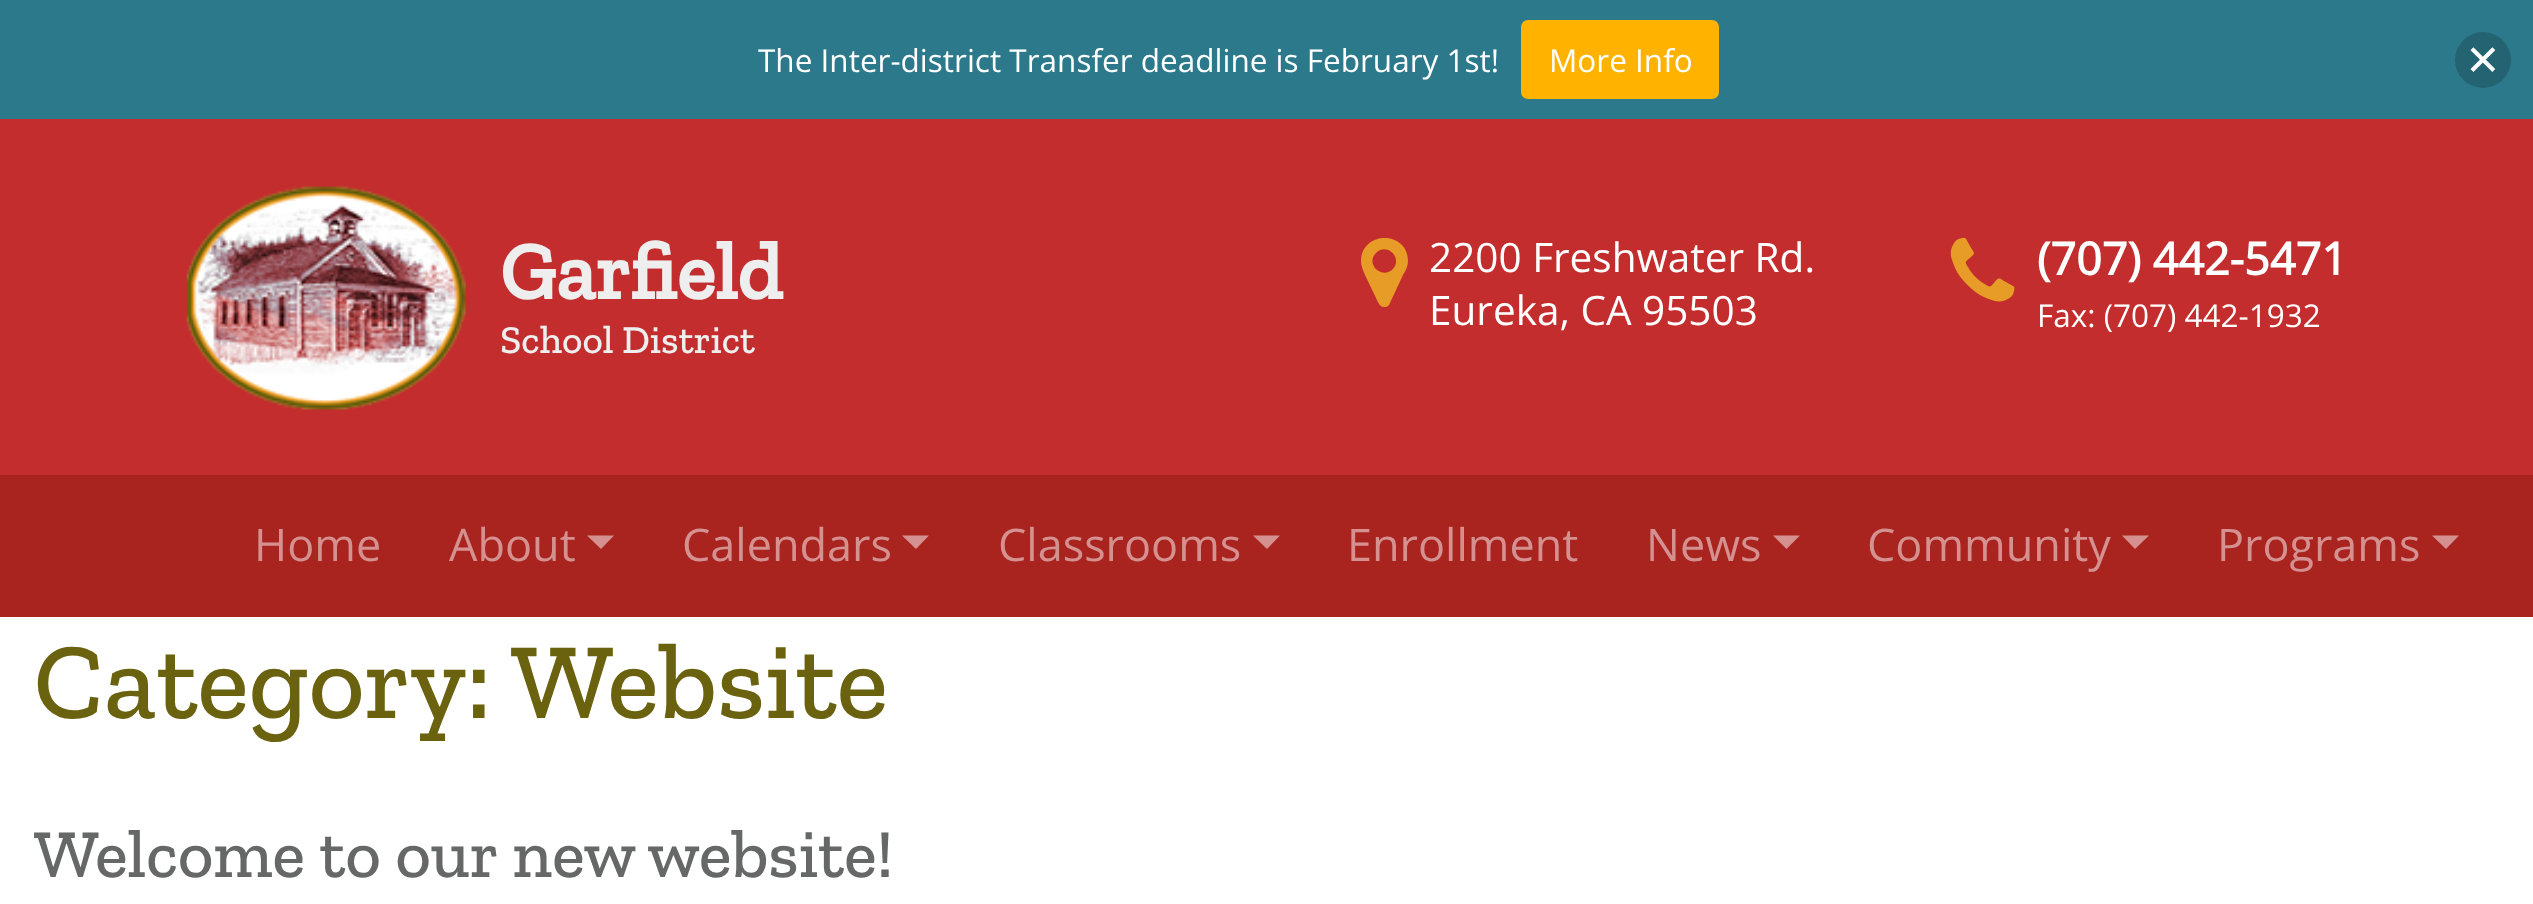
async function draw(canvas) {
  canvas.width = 2533
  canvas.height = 904
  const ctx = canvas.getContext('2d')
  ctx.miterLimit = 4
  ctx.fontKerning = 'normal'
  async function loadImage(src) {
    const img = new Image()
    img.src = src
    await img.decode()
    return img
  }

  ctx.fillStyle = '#fff'
  ctx.fillRect(0, 0, 2533, 904)
  ctx.fillStyle = '#2c798b'
  ctx.fillRect(0, 0, 2533, 119)
  ctx.font = '31.5px Open Sans'
  ctx.fillStyle = '#fff'
  ctx.fillText('The Inter-district Transfer deadline is February 1st!', 758, 72)
  ctx.fillStyle = '#ffb300'
  ctx.beginPath()
  ctx.roundRect(1521, 20, 198, 79, 7)
  ctx.fill()
  ctx.fillStyle = '#fff'
  ctx.fillText('More Info', 1549, 72)
  ctx.fillStyle = '#246372'
  ctx.beginPath()
  ctx.arc(2483, 60, 28, 0, 2 * Math.PI)
  ctx.fill()
  ctx.drawImage(await loadImage('image0.png'), 2470, 47, 26, 25)
  ctx.fillStyle = '#c42d2d'
  ctx.fillRect(0, 119, 2533, 356)
  ctx.drawImage(await loadImage('image1.png'), 186, 186, 280, 225)
  ctx.font = 'bold 81px Zilla Slab'
  ctx.fillStyle = '#eee'
  ctx.fillText('Garfield', 500, 299)
  ctx.font = '500 39.5px Zilla Slab'
  ctx.fillText('School District', 500, 353)
  ctx.fillStyle = '#e69c27'
  ctx.beginPath()
  ctx.moveTo(1393, 269)
  ctx.bezierCurveTo(1403, 258, 1387, 242, 1376, 253)
  ctx.bezierCurveTo(1365, 264, 1382, 280, 1393, 269)
  ctx.closePath()
  ctx.moveTo(1408, 261)
  ctx.bezierCurveTo(1408, 266, 1406, 270, 1403, 275)
  ctx.lineTo(1389, 305)
  ctx.bezierCurveTo(1388, 306, 1387, 307, 1385, 307)
  ctx.bezierCurveTo(1380, 308, 1378, 302, 1376, 298)
  ctx.lineTo(1365, 275)
  ctx.bezierCurveTo(1363, 270, 1361, 266, 1361, 261)
  ctx.bezierCurveTo(1362, 230, 1408, 231, 1408, 261)
  ctx.closePath()
  ctx.fill()
  ctx.font = '40.5px Open Sans'
  ctx.fillStyle = '#fff'
  ctx.fillText('2200 Freshwater Rd.', 1429, 272)
  ctx.fillText('Eureka, CA 95503', 1429, 325)
  ctx.drawImage(await loadImage('image2.png'), 1950, 237, 65, 65)
  ctx.font = 'bold 45px Open Sans'
  ctx.fillText('(707) 442-5471', 2037, 275)
  ctx.font = '31.5px Open Sans'
  ctx.fillText('Fax: (707) 442-1932', 2037, 327)
  ctx.fillStyle = '#a9231f'
  ctx.fillRect(0, 475, 2533, 142)
  ctx.font = '45px Open Sans'
  ctx.fillStyle = '#d4918f'
  ctx.fillText('Home', 254, 561)
  ctx.fillText('About', 449, 561)
  ctx.beginPath()
  ctx.moveTo(587, 535.5)
  ctx.lineTo(614, 535.5)
  ctx.lineTo(601, 549)
  ctx.closePath()
  ctx.fill()
  ctx.fillText('Calendars', 682, 561)
  ctx.beginPath()
  ctx.moveTo(902, 535.5)
  ctx.lineTo(929, 535.5)
  ctx.lineTo(916, 549)
  ctx.closePath()
  ctx.fill()
  ctx.fillText('Classrooms', 998, 561)
  ctx.beginPath()
  ctx.moveTo(1253, 535.5)
  ctx.lineTo(1280, 535.5)
  ctx.lineTo(1267, 549)
  ctx.closePath()
  ctx.fill()
  ctx.fillText('Enrollment', 1347, 561)
  ctx.fillText('News', 1646, 561)
  ctx.beginPath()
  ctx.moveTo(1773, 535.5)
  ctx.lineTo(1800, 535.5)
  ctx.lineTo(1786.5, 549)
  ctx.closePath()
  ctx.fill()
  ctx.fillText('Community', 1867, 561)
  ctx.beginPath()
  ctx.moveTo(2122, 535.5)
  ctx.lineTo(2149, 535.5)
  ctx.lineTo(2135, 549)
  ctx.closePath()
  ctx.fill()
  ctx.fillText('Programs', 2217, 561)
  ctx.beginPath()
  ctx.moveTo(2432, 535.5)
  ctx.lineTo(2459, 535.5)
  ctx.lineTo(2446, 549)
  ctx.closePath()
  ctx.fill()
  ctx.font = '500 108px Zilla Slab'
  ctx.fillStyle = '#6a620e'
  ctx.fillText('Category:', 34, 718)
  ctx.fillText('Website', 511, 718)
  ctx.font = '500 68.4px Zilla Slab'
  ctx.fillStyle = '#666767'
  ctx.fillText('Welcome to our new website!', 34, 877)
}

draw(document.querySelector('canvas'))
